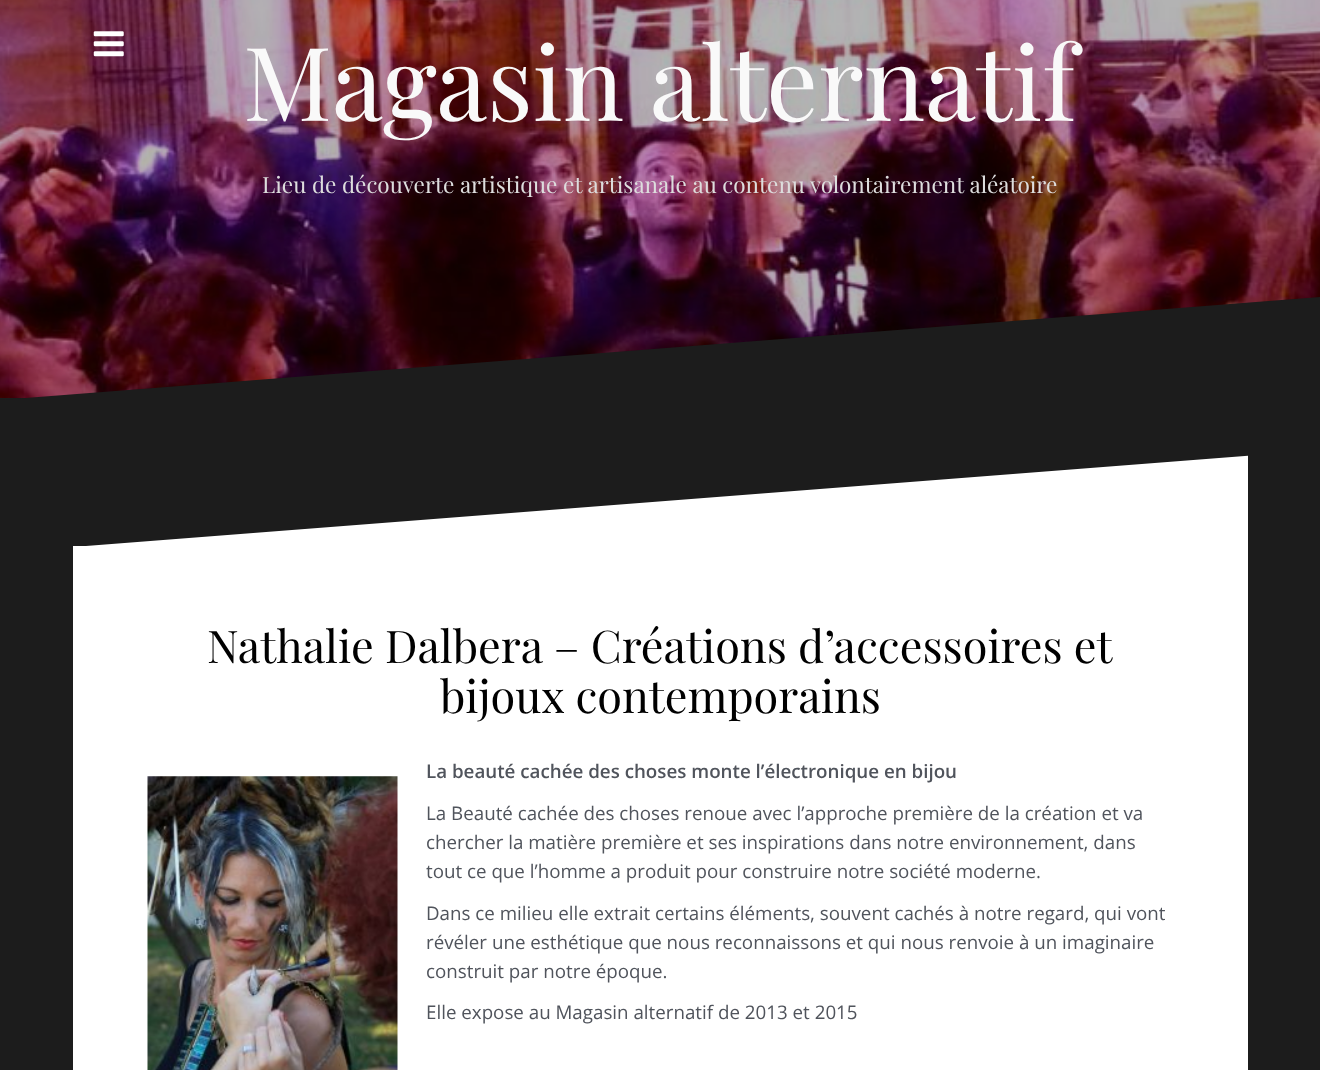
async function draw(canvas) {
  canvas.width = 1320
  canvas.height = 1070
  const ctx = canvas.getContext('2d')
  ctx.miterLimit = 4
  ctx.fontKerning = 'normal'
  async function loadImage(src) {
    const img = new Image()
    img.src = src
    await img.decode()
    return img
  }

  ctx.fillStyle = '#1c1c1c'
  ctx.fillRect(0, 0, 1320, 1070)
  ctx.drawImage(await loadImage('image1.png'), 0, 0, 1320, 398)
  ctx.drawImage(await loadImage('image0.png'), 93, 31, 31, 26)
  ctx.font = '102.5px Playfair Display'
  ctx.fillStyle = '#f9f9f9'
  ctx.fillText('Magasin alternatif', 243, 121)
  ctx.font = '22.5px Playfair Display'
  ctx.fillStyle = '#ddd'
  ctx.fillText('Lieu de découverte artistique et artisanale au contenu volontairement aléatoire', 262, 193)
  ctx.fillStyle = '#1c1c1c'
  ctx.beginPath()
  ctx.moveTo(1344, 295)
  ctx.lineTo(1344, 400)
  ctx.lineTo(0, 400)
  ctx.fill()
  ctx.fillStyle = '#fff'
  ctx.fillRect(73, 546, 1175, 524)
  ctx.save()
  ctx.beginPath()
  ctx.rect(73, 454, 1175, 94)
  ctx.clip()
  ctx.beginPath()
  ctx.moveTo(1269, 454)
  ctx.lineTo(1269, 547)
  ctx.lineTo(72, 547)
  ctx.fill()
  ctx.restore()
  ctx.font = '45px Playfair Display'
  ctx.fillStyle = '#000'
  ctx.fillText('Nathalie Dalbera – Créations d’accessoires et', 207, 663)
  ctx.fillText('bijoux contemporains', 440, 713)
  ctx.font = '600 18.75px Open Sans'
  ctx.fillStyle = '#50545c'
  ctx.fillText('La beauté cachée des choses monte l’électronique en bijou', 426, 778)
  ctx.drawImage(await loadImage('image2.png'), 147, 776, 251, 294)
  ctx.font = '18.75px Open Sans'
  ctx.fillText('La Beauté cachée des choses renoue avec l’approche première de la création et va', 426, 820)
  ctx.fillText('chercher la matière première et ses inspirations dans notre environnement, dans', 426, 849)
  ctx.fillText('tout ce que l’homme a produit pour construire notre société moderne.', 426, 878)
  ctx.fillText('Dans ce milieu elle extrait certains éléments, souvent cachés à notre regard, qui vont', 426, 920)
  ctx.fillText('révéler une esthétique que nous reconnaissons et qui nous renvoie à un imaginaire', 426, 949)
  ctx.fillText('construit par notre époque.', 426, 978)
  ctx.fillText('Elle expose au Magasin alternatif de 2013 et 2015', 426, 1019)
}

draw(document.querySelector('canvas'))
